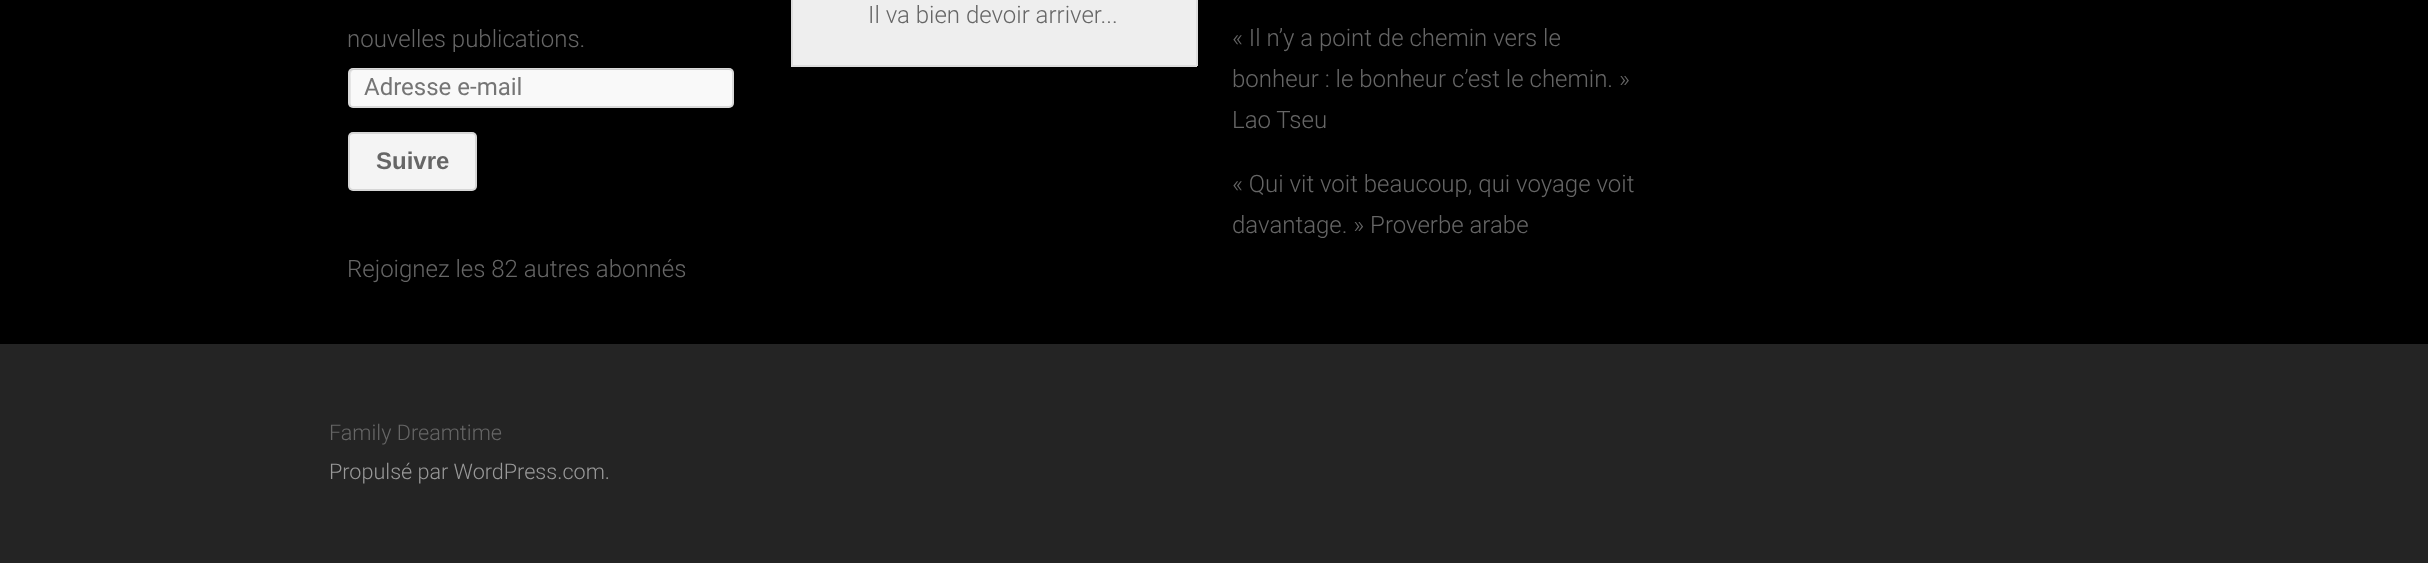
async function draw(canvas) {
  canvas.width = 2428
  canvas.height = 563
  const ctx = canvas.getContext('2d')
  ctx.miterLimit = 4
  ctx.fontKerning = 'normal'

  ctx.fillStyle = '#000'
  ctx.fillRect(0, 0, 2428, 563)
  ctx.fillStyle = '#eee'
  ctx.fillRect(793, 0, 403, 65)
  ctx.fillStyle = '#ddd'
  ctx.fillRect(1196, 0, 2, 66)
  ctx.fillRect(791, 65, 406, 2)
  ctx.fillRect(791, 0, 2, 66)
  ctx.font = '300 24px Roboto'
  ctx.fillStyle = '#666'
  ctx.fillText('Il va bien devoir arriver...', 868, 23)
  ctx.fillText('nouvelles publications.', 347, 47)
  ctx.fillStyle = '#f9f9f9'
  ctx.beginPath()
  ctx.roundRect(348, 68, 386, 40, 5)
  ctx.fill()
  ctx.fillStyle = '#e5e5e5'
  ctx.beginPath()
  ctx.moveTo(354, 70)
  ctx.lineTo(730, 70)
  ctx.lineTo(732, 70)
  ctx.bezierCurveTo(731, 70, 730, 69, 729, 69)
  ctx.lineTo(353, 69)
  ctx.bezierCurveTo(351, 69, 350, 70, 350, 72)
  ctx.lineTo(350, 104)
  ctx.bezierCurveTo(350, 105, 350, 106, 351, 106)
  ctx.lineTo(351, 79)
  ctx.bezierCurveTo(351, 77, 350, 70, 354, 70)
  ctx.closePath()
  ctx.fill()
  ctx.beginPath()
  ctx.roundRect(349, 69, 384, 38, 4)
  ctx.strokeStyle = '#0000001f'
  ctx.lineWidth = 2
  ctx.stroke()
  ctx.font = '24px Roboto'
  ctx.fillStyle = '#757575'
  ctx.fillText('Adresse e-mail', 364, 95)
  ctx.fillStyle = '#f4f4f4'
  ctx.beginPath()
  ctx.roundRect(348, 132, 129, 59, 5)
  ctx.fill()
  ctx.beginPath()
  ctx.roundRect(349, 133, 127, 57, 4)
  ctx.stroke()
  ctx.font = 'bold 24px Liberation Sans'
  ctx.fillStyle = '#666'
  ctx.fillText('Suivre', 376, 169)
  ctx.font = '300 24px Roboto'
  ctx.fillText('Rejoignez les 82 autres abonnés', 347, 277)
  ctx.fillText('« Il n’y a point de chemin vers le', 1232, 46)
  ctx.fillText('bonheur : le bonheur c’est le chemin. »', 1232, 87)
  ctx.fillText('Lao Tseu', 1232, 128)
  ctx.fillText('« Qui vit voit beaucoup, qui voyage voit', 1232, 192)
  ctx.fillText('davantage. » Proverbe arabe', 1232, 233)
  ctx.fillStyle = '#242424'
  ctx.fillRect(0, 344, 2428, 219)
  ctx.font = '300 21.6px Roboto'
  ctx.fillStyle = '#666'
  ctx.fillText('Family Dreamtime', 329, 440)
  ctx.fillStyle = '#999'
  ctx.fillText('Propulsé par WordPress.com.', 329, 479)
}

draw(document.querySelector('canvas'))
